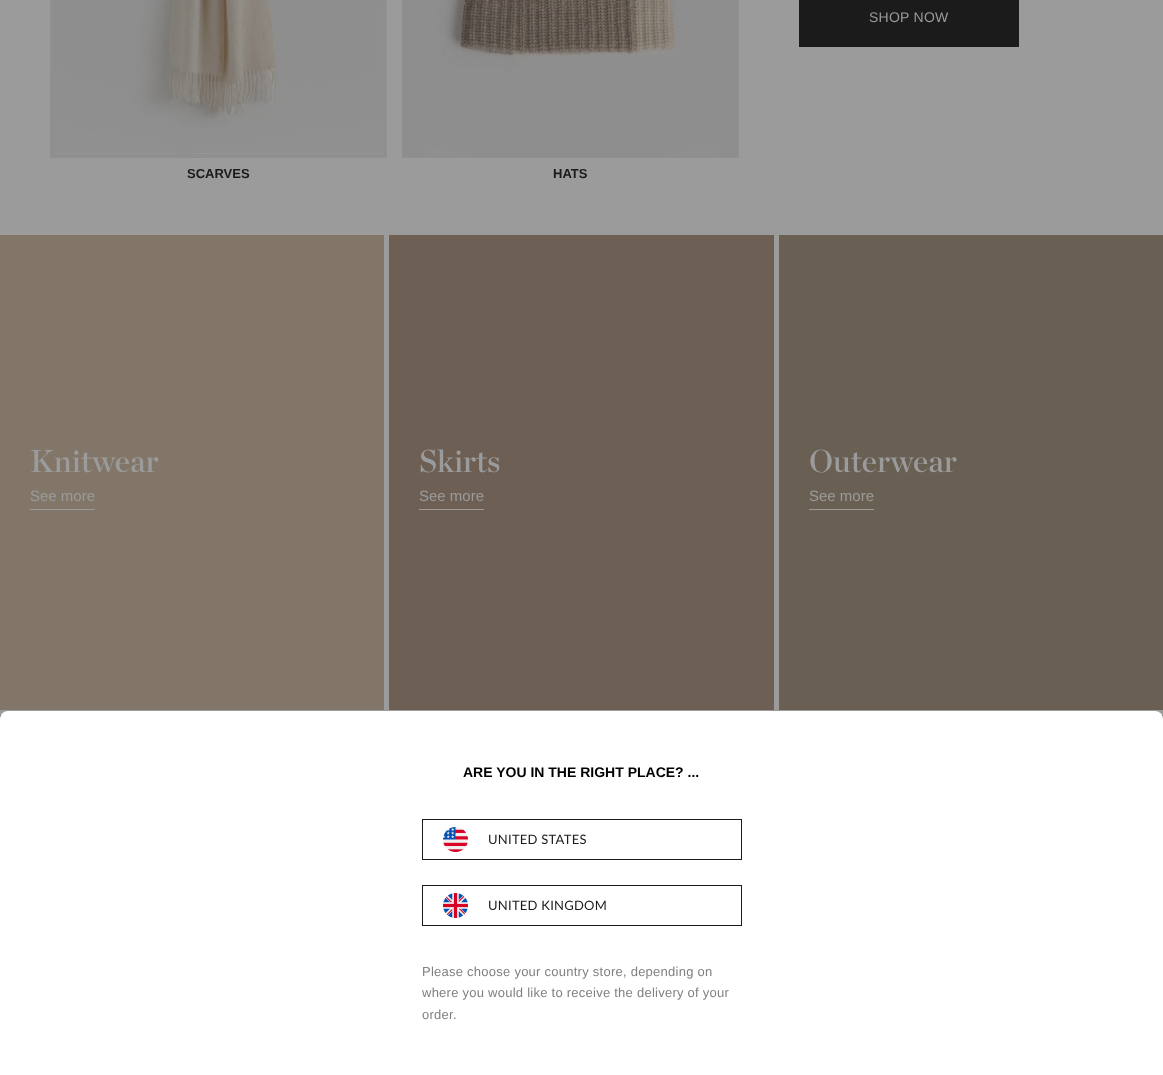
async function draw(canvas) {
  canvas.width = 1163
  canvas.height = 1075
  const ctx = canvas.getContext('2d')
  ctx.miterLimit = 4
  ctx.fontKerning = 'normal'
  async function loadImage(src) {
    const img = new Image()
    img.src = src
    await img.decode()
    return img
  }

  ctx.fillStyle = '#9b9b9b'
  ctx.fillRect(0, 0, 1163, 1075)
  ctx.fillStyle = '#1b1b1b'
  ctx.fillRect(799, 0, 220, 47)
  ctx.letterSpacing = '0.25px'
  ctx.font = '14px Liberation Sans'
  ctx.fillStyle = '#9b9b9b'
  ctx.fillText('SHOP NOW', 869, 22)
  ctx.drawImage(await loadImage('image0.png'), 50, 0, 337, 158)
  ctx.letterSpacing = '0px'
  ctx.font = 'bold 13px Liberation Sans'
  ctx.fillStyle = '#1b1b1b'
  ctx.fillText('SCARVES', 187, 178)
  ctx.drawImage(await loadImage('image1.png'), 402, 0, 337, 158)
  ctx.fillText('HATS', 553, 178)
  ctx.fillStyle = '#827669'
  ctx.fillRect(0, 235, 384, 475)
  ctx.font = '31.5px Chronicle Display'
  ctx.fillStyle = '#9b9b9b'
  ctx.fillText('Knitwear', 30, 472)
  ctx.font = '15px Liberation Sans'
  ctx.fillText('See more', 30, 501)
  ctx.fillRect(30, 509, 65, 1)
  ctx.fillStyle = '#6d5f53'
  ctx.fillRect(389, 235, 385, 475)
  ctx.font = '31.5px Chronicle Display'
  ctx.fillStyle = '#9b9b9b'
  ctx.fillText('Skirts', 419, 472)
  ctx.font = '15px Liberation Sans'
  ctx.fillText('See more', 419, 501)
  ctx.fillRect(419, 509, 65, 1)
  ctx.fillStyle = '#695f53'
  ctx.fillRect(779, 235, 384, 475)
  ctx.font = '31.5px Chronicle Display'
  ctx.fillStyle = '#9b9b9b'
  ctx.fillText('Outerwear', 809, 472)
  ctx.font = '15px Liberation Sans'
  ctx.fillText('See more', 809, 501)
  ctx.fillRect(809, 509, 65, 1)
  ctx.fillStyle = '#6c6761'
  ctx.fillRect(0, 715, 2, 4)
  ctx.fillStyle = '#857a70'
  ctx.fillRect(1161, 715, 2, 4)
  ctx.fillStyle = '#fff'
  ctx.beginPath()
  ctx.roundRect(0, 711, 1163, 364, [8, 8, 0, 0])
  ctx.fill()
  ctx.font = 'bold 14px Liberation Sans'
  ctx.fillStyle = '#000'
  ctx.fillText('ARE YOU IN THE RIGHT PLACE? ...', 463, 777)
  ctx.strokeStyle = '#1c1b1b'
  ctx.strokeRect(422.5, 819.5, 319, 40)
  ctx.drawImage(await loadImage('image2.png'), 443, 827, 25, 25)
  ctx.letterSpacing = '0.25px'
  ctx.font = '13px Lato'
  ctx.fillStyle = '#1b1b1b'
  ctx.fillText('UNITED STATES', 488, 844)
  ctx.strokeRect(422.5, 885.5, 319, 40)
  ctx.drawImage(await loadImage('image3.png'), 443, 893, 25, 25)
  ctx.fillText('UNITED KINGDOM', 488, 910)
  ctx.font = '13px Liberation Sans'
  ctx.fillStyle = '#808080'
  ctx.fillText('Please choose your country store, depending on', 422, 976)
  ctx.fillText('where you would like to receive the delivery of your', 422, 997)
  ctx.fillText('order.', 422, 1019)
}

draw(document.querySelector('canvas'))
